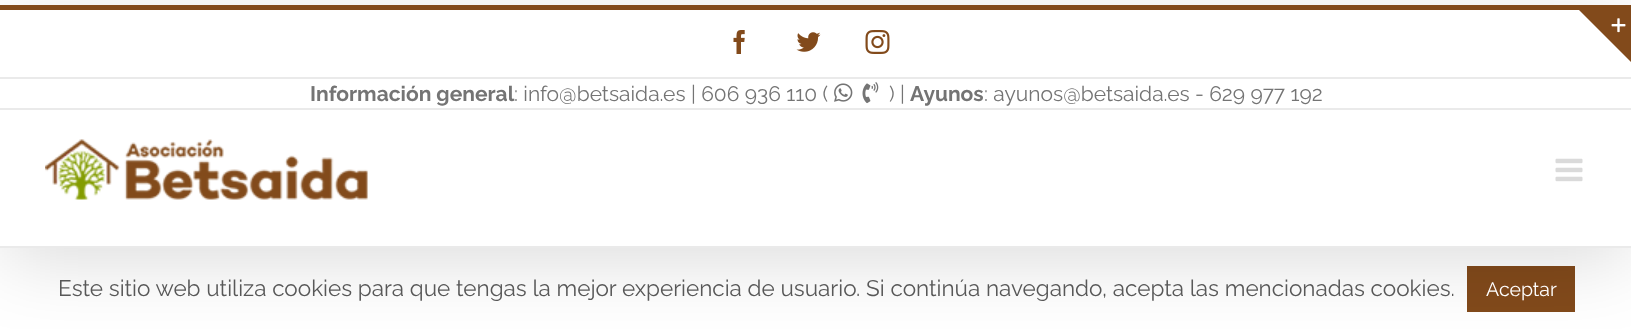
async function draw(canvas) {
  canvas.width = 1631
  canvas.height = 329
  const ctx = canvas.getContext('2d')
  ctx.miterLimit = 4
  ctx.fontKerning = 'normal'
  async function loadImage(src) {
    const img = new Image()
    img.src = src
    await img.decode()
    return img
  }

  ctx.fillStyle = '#fff'
  ctx.fillRect(0, 0, 1631, 329)
  ctx.fillStyle = '#824a1b'
  ctx.fillRect(1467, 266, 108, 46)
  ctx.save()
  ctx.beginPath()
  ctx.moveTo(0, 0)
  ctx.lineTo(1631, 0)
  ctx.lineTo(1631, 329)
  ctx.lineTo(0, 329)
  ctx.closePath()
  ctx.moveTo(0, 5)
  ctx.lineTo(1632, 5)
  ctx.lineTo(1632, 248)
  ctx.lineTo(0, 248)
  ctx.closePath()
  ctx.clip('evenodd')
  ctx.fillStyle = '#00000024'
  ctx.filter = 'blur(37.5px)'
  ctx.beginPath()
  ctx.rect(3, 23, 1626, 237)
  ctx.fill()
  ctx.filter = 'none'
  ctx.restore()
  ctx.fillRect(0, 5, 1631, 5)
  ctx.beginPath()
  ctx.moveTo(1578, 9)
  ctx.lineTo(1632, 9)
  ctx.lineTo(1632, 63)
  ctx.closePath()
  ctx.fill()
  ctx.drawImage(await loadImage('image0.png'), 1611, 18, 15, 15)
  ctx.fillStyle = '#eaeaea'
  ctx.fillRect(0, 108, 1631, 2)
  ctx.fillRect(0, 77, 1631, 2)
  ctx.drawImage(await loadImage('image1.png'), 733, 30, 12, 24)
  ctx.drawImage(await loadImage('image2.png'), 796, 32, 25, 20)
  ctx.drawImage(await loadImage('image3.png'), 865, 30, 25, 24)
  ctx.font = 'bold 21px Raleway'
  ctx.fillStyle = '#747474'
  ctx.fillText('Información general', 310, 101)
  ctx.font = '21px Raleway'
  ctx.fillText(': info@betsaida.es | 606 936 110 (', 514, 101)
  ctx.drawImage(await loadImage('image4.png'), 834, 83, 19, 19)
  ctx.drawImage(await loadImage('image5.png'), 862, 82, 17, 22)
  ctx.fillText(') |', 889, 101)
  ctx.font = 'bold 21px Raleway'
  ctx.fillText('Ayunos', 910, 101)
  ctx.font = '21px Raleway'
  ctx.fillText(': ayunos@betsaida.es - 629 977 192', 984, 101)
  ctx.fillStyle = '#eaeaea'
  ctx.fillRect(0, 246, 1631, 2)
  ctx.drawImage(await loadImage('image6.png'), 45, 139, 323, 61)
  ctx.drawImage(await loadImage('image7.png'), 1555, 158, 28, 24)
  ctx.font = '22.5px Raleway'
  ctx.fillStyle = '#585858'
  ctx.fillText('Este sitio web utiliza cookies para que tengas la mejor experiencia de usuario. Si continúa navegando, acepta las mencionadas cookies.', 58, 296)
  ctx.font = '19.5px Raleway'
  ctx.fillStyle = '#fff'
  ctx.fillText('Aceptar', 1486, 296)
}

draw(document.querySelector('canvas'))
